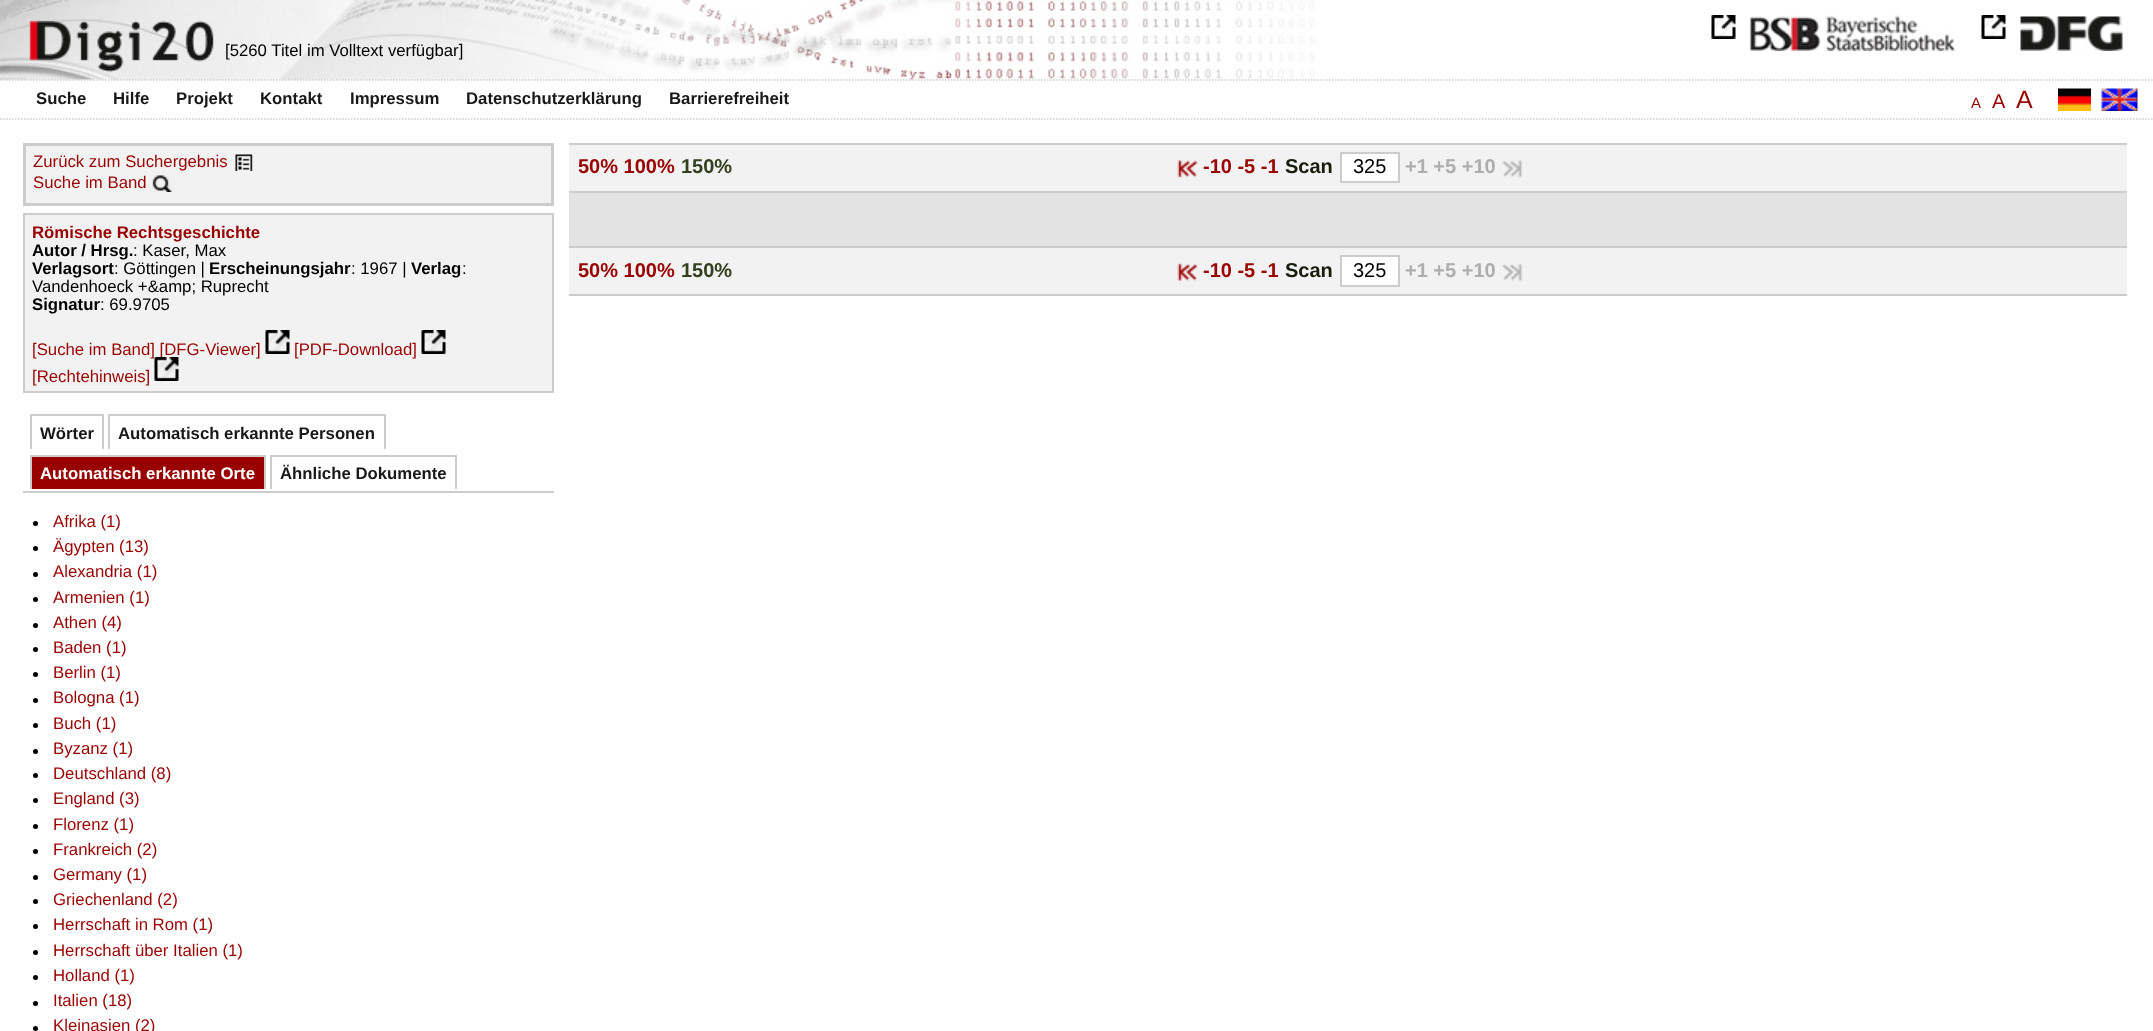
async function draw(canvas) {
  canvas.width = 2153
  canvas.height = 1031
  const ctx = canvas.getContext('2d')
  ctx.miterLimit = 4
  ctx.fontKerning = 'normal'
  async function loadImage(src) {
    const img = new Image()
    img.src = src
    await img.decode()
    return img
  }

  ctx.fillStyle = '#fff'
  ctx.fillRect(0, 0, 2153, 1031)
  ctx.drawImage(await loadImage('image0.png'), 0, 0, 1315, 80)
  ctx.font = '16.75px Liberation Sans'
  ctx.fillStyle = '#000'
  ctx.fillText('[5260 Titel im Volltext verfügbar]', 225, 56)
  ctx.drawImage(await loadImage('image1.png'), 1750, 15, 205, 36)
  ctx.drawImage(await loadImage('image2.png'), 1711, 15, 25, 24)
  ctx.drawImage(await loadImage('image3.png'), 2020, 16, 103, 35)
  ctx.drawImage(await loadImage('image2.png'), 1981, 15, 25, 24)
  ctx.beginPath()
  ctx.moveTo(0, 80)
  ctx.lineTo(2152.5, 80)
  ctx.strokeStyle = '#ccc'
  ctx.lineWidth = 1.5
  ctx.setLineDash([1.5, 1.5])
  ctx.stroke()
  ctx.beginPath()
  ctx.moveTo(0, 119)
  ctx.lineTo(2152.5, 119)
  ctx.stroke()
  ctx.font = 'bold 16.75px Liberation Sans'
  ctx.fillStyle = '#181818'
  ctx.fillText('Suche', 36, 104)
  ctx.fillText('Hilfe', 113, 104)
  ctx.fillText('Projekt', 176, 104)
  ctx.fillText('Kontakt', 260, 104)
  ctx.fillText('Impressum', 350, 104)
  ctx.fillText('Datenschutzerklärung', 466, 104)
  ctx.fillText('Barrierefreiheit', 669, 104)
  ctx.font = '15px Liberation Sans'
  ctx.fillStyle = '#900'
  ctx.fillText('A', 1971, 108)
  ctx.font = '20px Liberation Sans'
  ctx.fillText('A', 1992, 108)
  ctx.font = '25px Liberation Sans'
  ctx.fillText('A', 2016, 108)
  ctx.drawImage(await loadImage('image4.png'), 2058, 88, 33, 23)
  ctx.drawImage(await loadImage('image5.png'), 2101, 88, 37, 23)
  ctx.fillStyle = '#f2f2f2'
  ctx.beginPath()
  ctx.rect(24.5, 144.5, 528, 60)
  ctx.fill()
  ctx.lineWidth = 3
  ctx.setLineDash([])
  ctx.stroke()
  ctx.font = '16.75px Liberation Sans'
  ctx.fillStyle = '#900'
  ctx.fillText('Zurück zum Suchergebnis', 33, 167)
  ctx.drawImage(await loadImage('image6.png'), 235, 154, 18, 17)
  ctx.fillText('Suche im Band', 33, 188)
  ctx.drawImage(await loadImage('image7.png'), 152, 175, 21, 17)
  ctx.fillStyle = '#f2f2f2'
  ctx.beginPath()
  ctx.rect(24, 214, 529, 178)
  ctx.fill()
  ctx.lineWidth = 2
  ctx.stroke()
  ctx.font = 'bold 16.75px Liberation Sans'
  ctx.fillStyle = '#900'
  ctx.fillText('Römische Rechtsgeschichte', 32, 238)
  ctx.fillStyle = '#000'
  ctx.fillText('Autor / Hrsg.', 32, 256)
  ctx.font = '16.75px Liberation Sans'
  ctx.fillText(': Kaser, Max', 133, 256)
  ctx.font = 'bold 16.75px Liberation Sans'
  ctx.fillText('Verlagsort', 32, 274)
  ctx.font = '16.75px Liberation Sans'
  ctx.fillText(': Göttingen |', 114, 274)
  ctx.font = 'bold 16.75px Liberation Sans'
  ctx.fillText('Erscheinungsjahr', 209, 274)
  ctx.font = '16.75px Liberation Sans'
  ctx.fillText(': 1967 |', 351, 274)
  ctx.font = 'bold 16.75px Liberation Sans'
  ctx.fillText('Verlag', 411, 274)
  ctx.font = '16.75px Liberation Sans'
  ctx.fillText(':', 462, 274)
  ctx.fillText('Vandenhoeck +&amp; Ruprecht', 32, 292)
  ctx.font = 'bold 16.75px Liberation Sans'
  ctx.fillText('Signatur', 32, 310)
  ctx.font = '16.75px Liberation Sans'
  ctx.fillText(': 69.9705', 100, 310)
  ctx.fillStyle = '#900'
  ctx.fillText('[Suche im Band] [DFG-Viewer]', 32, 355)
  ctx.drawImage(await loadImage('image8.png'), 265, 330, 25, 24)
  ctx.fillText('[PDF-Download]', 294, 355)
  ctx.drawImage(await loadImage('image9.png'), 421, 330, 25, 24)
  ctx.fillText('[Rechtehinweis]', 32, 382)
  ctx.drawImage(await loadImage('image8.png'), 154, 357, 25, 24)
  ctx.fillStyle = '#ccc'
  ctx.fillRect(23, 491, 531, 2)
  ctx.font = 'bold 16.75px Liberation Sans'
  ctx.fillStyle = '#181818'
  ctx.fillText('Wörter', 40, 439)
  ctx.fillStyle = '#ccc'
  ctx.fillRect(30, 414, 74, 2)
  ctx.fillRect(102, 414, 2, 35)
  ctx.fillRect(30, 414, 2, 35)
  ctx.fillStyle = '#181818'
  ctx.fillText('Automatisch erkannte Personen', 118, 439)
  ctx.fillStyle = '#ccc'
  ctx.fillRect(108, 414, 278, 2)
  ctx.fillRect(384, 414, 2, 35)
  ctx.fillRect(108, 414, 2, 35)
  ctx.fillStyle = '#900'
  ctx.fillRect(32, 457, 232, 32)
  ctx.fillStyle = '#fff'
  ctx.fillText('Automatisch erkannte Orte', 40, 479)
  ctx.fillStyle = '#ccc'
  ctx.fillRect(30, 455, 236, 2)
  ctx.fillRect(264, 455, 2, 34)
  ctx.fillRect(30, 455, 2, 34)
  ctx.fillStyle = '#181818'
  ctx.fillText('Ähnliche Dokumente', 280, 479)
  ctx.fillStyle = '#ccc'
  ctx.fillRect(270, 455, 186, 2)
  ctx.fillRect(455, 455, 2, 34)
  ctx.fillRect(270, 455, 2, 34)
  ctx.fillStyle = '#000'
  ctx.beginPath()
  ctx.arc(35.5, 523.5, 2.5, 0, 2 * Math.PI)
  ctx.fill()
  ctx.font = '16.75px Liberation Sans'
  ctx.fillStyle = '#900'
  ctx.fillText('Afrika (1)', 53, 527)
  ctx.fillStyle = '#000'
  ctx.beginPath()
  ctx.arc(35.5, 548.5, 2.5, 0, 2 * Math.PI)
  ctx.fill()
  ctx.fillStyle = '#900'
  ctx.fillText('Ägypten (13)', 53, 552)
  ctx.fillStyle = '#000'
  ctx.beginPath()
  ctx.arc(35.5, 574.5, 2.5, 0, 2 * Math.PI)
  ctx.fill()
  ctx.fillStyle = '#900'
  ctx.fillText('Alexandria (1)', 53, 577)
  ctx.fillStyle = '#000'
  ctx.beginPath()
  ctx.arc(35.5, 599.5, 2.5, 0, 2 * Math.PI)
  ctx.fill()
  ctx.fillStyle = '#900'
  ctx.fillText('Armenien (1)', 53, 603)
  ctx.fillStyle = '#000'
  ctx.beginPath()
  ctx.arc(35.5, 625.5, 2.5, 0, 2 * Math.PI)
  ctx.fill()
  ctx.fillStyle = '#900'
  ctx.fillText('Athen (4)', 53, 628)
  ctx.fillStyle = '#000'
  ctx.beginPath()
  ctx.arc(35.5, 649.5, 2.5, 0, 2 * Math.PI)
  ctx.fill()
  ctx.fillStyle = '#900'
  ctx.fillText('Baden (1)', 53, 653)
  ctx.fillStyle = '#000'
  ctx.beginPath()
  ctx.arc(35.5, 674.5, 2.5, 0, 2 * Math.PI)
  ctx.fill()
  ctx.fillStyle = '#900'
  ctx.fillText('Berlin (1)', 53, 678)
  ctx.fillStyle = '#000'
  ctx.beginPath()
  ctx.arc(35.5, 700.5, 2.5, 0, 2 * Math.PI)
  ctx.fill()
  ctx.fillStyle = '#900'
  ctx.fillText('Bologna (1)', 53, 703)
  ctx.fillStyle = '#000'
  ctx.beginPath()
  ctx.arc(35.5, 725.5, 2.5, 0, 2 * Math.PI)
  ctx.fill()
  ctx.fillStyle = '#900'
  ctx.fillText('Buch (1)', 53, 729)
  ctx.fillStyle = '#000'
  ctx.beginPath()
  ctx.arc(35.5, 751.5, 2.5, 0, 2 * Math.PI)
  ctx.fill()
  ctx.fillStyle = '#900'
  ctx.fillText('Byzanz (1)', 53, 754)
  ctx.fillStyle = '#000'
  ctx.beginPath()
  ctx.arc(35.5, 775.5, 2.5, 0, 2 * Math.PI)
  ctx.fill()
  ctx.fillStyle = '#900'
  ctx.fillText('Deutschland (8)', 53, 779)
  ctx.fillStyle = '#000'
  ctx.beginPath()
  ctx.arc(35.5, 800.5, 2.5, 0, 2 * Math.PI)
  ctx.fill()
  ctx.fillStyle = '#900'
  ctx.fillText('England (3)', 53, 804)
  ctx.fillStyle = '#000'
  ctx.beginPath()
  ctx.arc(35.5, 826.5, 2.5, 0, 2 * Math.PI)
  ctx.fill()
  ctx.fillStyle = '#900'
  ctx.fillText('Florenz (1)', 53, 830)
  ctx.fillStyle = '#000'
  ctx.beginPath()
  ctx.arc(35.5, 851.5, 2.5, 0, 2 * Math.PI)
  ctx.fill()
  ctx.fillStyle = '#900'
  ctx.fillText('Frankreich (2)', 53, 855)
  ctx.fillStyle = '#000'
  ctx.beginPath()
  ctx.arc(35.5, 877.5, 2.5, 0, 2 * Math.PI)
  ctx.fill()
  ctx.fillStyle = '#900'
  ctx.fillText('Germany (1)', 53, 880)
  ctx.fillStyle = '#000'
  ctx.beginPath()
  ctx.arc(35.5, 901.5, 2.5, 0, 2 * Math.PI)
  ctx.fill()
  ctx.fillStyle = '#900'
  ctx.fillText('Griechenland (2)', 53, 905)
  ctx.fillStyle = '#000'
  ctx.beginPath()
  ctx.arc(35.5, 926.5, 2.5, 0, 2 * Math.PI)
  ctx.fill()
  ctx.fillStyle = '#900'
  ctx.fillText('Herrschaft in Rom (1)', 53, 930)
  ctx.fillStyle = '#000'
  ctx.beginPath()
  ctx.arc(35.5, 952.5, 2.5, 0, 2 * Math.PI)
  ctx.fill()
  ctx.fillStyle = '#900'
  ctx.fillText('Herrschaft über Italien (1)', 53, 956)
  ctx.fillStyle = '#000'
  ctx.beginPath()
  ctx.arc(35.5, 977.5, 2.5, 0, 2 * Math.PI)
  ctx.fill()
  ctx.fillStyle = '#900'
  ctx.fillText('Holland (1)', 53, 981)
  ctx.fillStyle = '#000'
  ctx.beginPath()
  ctx.arc(35.5, 1003.5, 2.5, 0, 2 * Math.PI)
  ctx.fill()
  ctx.fillStyle = '#900'
  ctx.fillText('Italien (18)', 53, 1006)
  ctx.fillStyle = '#000'
  ctx.beginPath()
  ctx.arc(35.5, 1028.5, 2.5, 0, 2 * Math.PI)
  ctx.fill()
  ctx.fillStyle = '#900'
  ctx.fillText('Kleinasien (2)', 53, 1031)
  ctx.fillStyle = '#f2f2f2'
  ctx.fillRect(569, 145, 1558, 46)
  ctx.fillStyle = '#ccc'
  ctx.fillRect(569, 143, 1558, 2)
  ctx.fillRect(569, 191, 1558, 2)
  ctx.font = 'bold 20px Liberation Sans'
  ctx.fillStyle = '#900'
  ctx.fillText('50% 100%', 578, 173)
  ctx.fillStyle = '#333f1d'
  ctx.fillText('150%', 681, 173)
  ctx.drawImage(await loadImage('image10.png'), 1177, 160, 21, 18)
  ctx.fillStyle = '#900'
  ctx.fillText('-10 -5 -1', 1203, 173)
  ctx.fillStyle = '#171c0d'
  ctx.fillText('Scan', 1285, 173)
  ctx.fillStyle = '#fff'
  ctx.beginPath()
  ctx.rect(1341, 153, 58, 29)
  ctx.fill()
  ctx.stroke()
  ctx.font = '20px Liberation Sans'
  ctx.fillStyle = '#000'
  ctx.fillText('325', 1353, 173)
  ctx.font = 'bold 20px Liberation Sans'
  ctx.fillStyle = '#aeaeae'
  ctx.fillText('+1 +5 +10', 1405, 173)
  ctx.drawImage(await loadImage('image11.png'), 1502, 160, 21, 18)
  ctx.fillStyle = '#e3e3e3'
  ctx.fillRect(569, 193, 1558, 53)
  ctx.fillStyle = '#f2f2f2'
  ctx.fillRect(569, 248, 1558, 46)
  ctx.fillStyle = '#ccc'
  ctx.fillRect(569, 246, 1558, 2)
  ctx.fillRect(569, 294, 1558, 2)
  ctx.fillStyle = '#900'
  ctx.fillText('50% 100%', 578, 277)
  ctx.fillStyle = '#333f1d'
  ctx.fillText('150%', 681, 277)
  ctx.drawImage(await loadImage('image12.png'), 1177, 263, 21, 18)
  ctx.fillStyle = '#900'
  ctx.fillText('-10 -5 -1', 1203, 277)
  ctx.fillStyle = '#171c0d'
  ctx.fillText('Scan', 1285, 277)
  ctx.fillStyle = '#fff'
  ctx.beginPath()
  ctx.rect(1341, 256, 58, 30)
  ctx.fill()
  ctx.stroke()
  ctx.font = '20px Liberation Sans'
  ctx.fillStyle = '#000'
  ctx.fillText('325', 1353, 277)
  ctx.font = 'bold 20px Liberation Sans'
  ctx.fillStyle = '#aeaeae'
  ctx.fillText('+1 +5 +10', 1405, 277)
  ctx.drawImage(await loadImage('image13.png'), 1502, 263, 21, 18)
}

draw(document.querySelector('canvas'))
